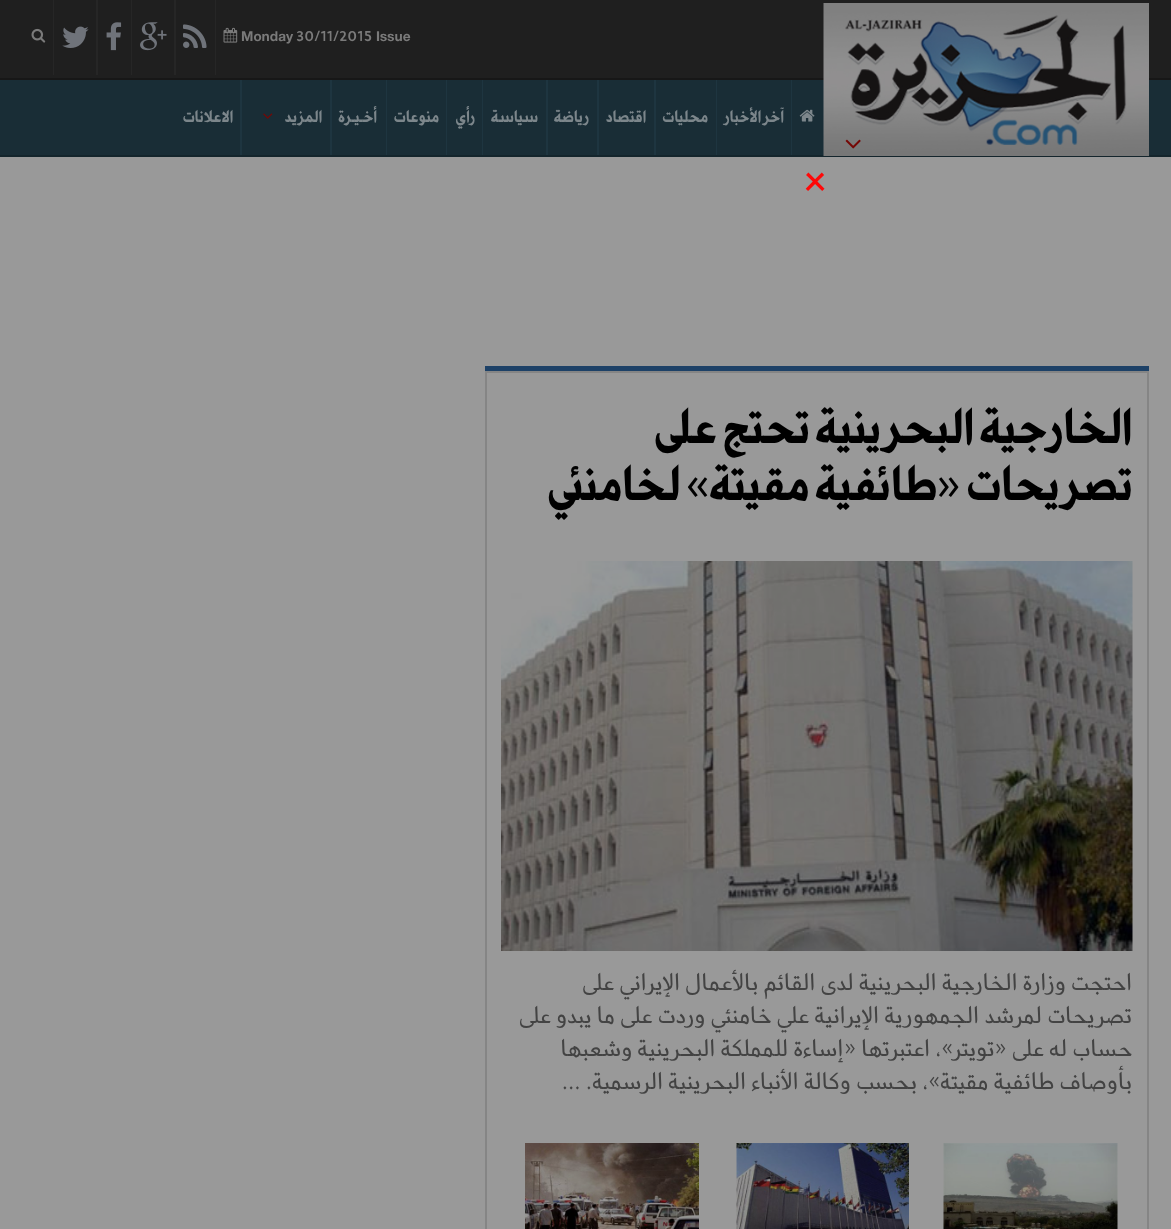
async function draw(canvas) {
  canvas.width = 1171
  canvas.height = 1229
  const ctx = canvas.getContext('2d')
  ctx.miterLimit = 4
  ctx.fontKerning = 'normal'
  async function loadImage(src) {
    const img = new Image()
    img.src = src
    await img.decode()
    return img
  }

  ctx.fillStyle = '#999'
  ctx.fillRect(0, 0, 1171, 1229)
  ctx.fillStyle = '#1f1f1f'
  ctx.fillRect(0, 0, 1171, 78)
  ctx.fillStyle = '#171717'
  ctx.fillRect(0, 78, 1171, 2)
  ctx.font = 'bold 14.75px "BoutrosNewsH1"'
  ctx.fillStyle = '#7a7a7a'
  ctx.fillText('Issue', 376, 41)
  ctx.fillText('30/11/2015', 296, 41)
  ctx.fillText('Monday', 241, 41)
  ctx.drawImage(await loadImage('image0.png'), 223, 27, 15, 16)
  ctx.fillStyle = '#262626'
  ctx.fillRect(215, 0, 1, 75)
  ctx.drawImage(await loadImage('image1.png'), 183, 24, 24, 24)
  ctx.fillRect(174, 0, 2, 75)
  ctx.drawImage(await loadImage('image2.png'), 140, 22, 27, 29)
  ctx.fillRect(131, 0, 1, 75)
  ctx.drawImage(await loadImage('image3.png'), 106, 22, 16, 29)
  ctx.fillRect(96, 0, 2, 75)
  ctx.drawImage(await loadImage('image4.png'), 62, 26, 27, 22)
  ctx.fillRect(53, 0, 1, 75)
  ctx.drawImage(await loadImage('image5.png'), 31, 28, 15, 15)
  ctx.fillStyle = '#192d36'
  ctx.fillRect(0, 80, 1171, 75)
  ctx.fillStyle = '#14252c'
  ctx.fillRect(0, 155, 1171, 2)
  ctx.drawImage(await loadImage('image6.png'), 823, 3, 326, 153)
  ctx.drawImage(await loadImage('image7.png'), 845, 139, 16, 10)
  ctx.drawImage(await loadImage('image8.png'), 799, 109, 16, 13)
  ctx.fillStyle = '#1e3540'
  ctx.fillRect(791, 80, 1, 75)
  ctx.direction = 'rtl'
  ctx.font = 'bold 16.5px "BoutrosNewsH1"'
  ctx.fillStyle = '#7c868b'
  ctx.fillText('آخر الأخبار', 784, 122)
  ctx.fillStyle = '#1e3540'
  ctx.fillRect(716, 80, 1, 75)
  ctx.fillStyle = '#7c868b'
  ctx.fillText('محليات', 708, 122)
  ctx.fillStyle = '#1e3540'
  ctx.fillRect(654, 80, 2, 75)
  ctx.fillStyle = '#7c868b'
  ctx.fillText('اقتصاد', 646, 122)
  ctx.fillStyle = '#1e3540'
  ctx.fillRect(597, 80, 2, 75)
  ctx.fillStyle = '#7c868b'
  ctx.fillText('رياضة', 589, 122)
  ctx.fillStyle = '#1e3540'
  ctx.fillRect(546, 80, 2, 75)
  ctx.fillStyle = '#7c868b'
  ctx.fillText('سياسة', 538, 122)
  ctx.fillStyle = '#1e3540'
  ctx.fillRect(482, 80, 1, 75)
  ctx.fillStyle = '#7c868b'
  ctx.fillText('رأي', 475, 122)
  ctx.fillStyle = '#1e3540'
  ctx.fillRect(446, 80, 1, 75)
  ctx.fillStyle = '#7c868b'
  ctx.fillText('منوعات', 439, 122)
  ctx.fillStyle = '#1e3540'
  ctx.fillRect(386, 80, 1, 75)
  ctx.fillStyle = '#7c868b'
  ctx.fillText('أخـيـرة', 377, 122)
  ctx.fillStyle = '#1e3540'
  ctx.fillRect(330, 80, 2, 75)
  ctx.fillStyle = '#7c868b'
  ctx.fillText('المزيد', 322, 122)
  ctx.drawImage(await loadImage('image9.png'), 263, 113, 10, 6)
  ctx.fillStyle = '#1e3540'
  ctx.fillRect(240, 80, 2, 75)
  ctx.fillStyle = '#7c868b'
  ctx.fillText('الاعلانات', 233, 122)
  ctx.direction = 'ltr'
  ctx.font = 'bold 42px "BoutrosNewsH1"'
  ctx.fillStyle = '#ff0808'
  ctx.fillText('×', 804, 191)
  ctx.fillStyle = '#1d4167'
  ctx.fillRect(485, 366, 664, 5)
  ctx.strokeStyle = '#858585'
  ctx.lineWidth = 2
  ctx.strokeRect(486, 372, 662, 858)
  ctx.direction = 'rtl'
  ctx.font = 'bold 48px "BoutrosNewsH1"'
  ctx.fillStyle = '#000'
  ctx.fillText('الخارجية البحرينية تحتج على', 1132, 443)
  ctx.fillText('تصريحات «طائفية مقيتة» لخامنئي', 1132, 500)
  ctx.drawImage(await loadImage('image10.png'), 501, 561, 632, 390)
  ctx.font = '300 30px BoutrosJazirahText'
  ctx.fillStyle = '#434343'
  ctx.fillText('احتجت وزارة الخارجية البحرينية لدى القائم بالأعمال الإيراني على', 1132, 990)
  ctx.fillText('تصريحات لمرشد', 1132, 1023)
  ctx.fillText('الجمهورية الإيرانية علي خامنئي وردت على ما يبدو على', 979, 1023)
  ctx.fillText('حساب له على «تويتر»، اعتبرتها «إساءة للمملكة البحرينية وشعبها', 1132, 1056)
  ctx.fillText('بأوصاف طائفية مقيتة»، بحسب وكالة الأنباء البحرينية الرسمية. ...', 1132, 1089)
  ctx.drawImage(await loadImage('image11.png'), 943, 1143, 175, 86)
  ctx.drawImage(await loadImage('image12.png'), 736, 1143, 173, 86)
  ctx.drawImage(await loadImage('image13.png'), 525, 1143, 174, 86)
}

draw(document.querySelector('canvas'))
